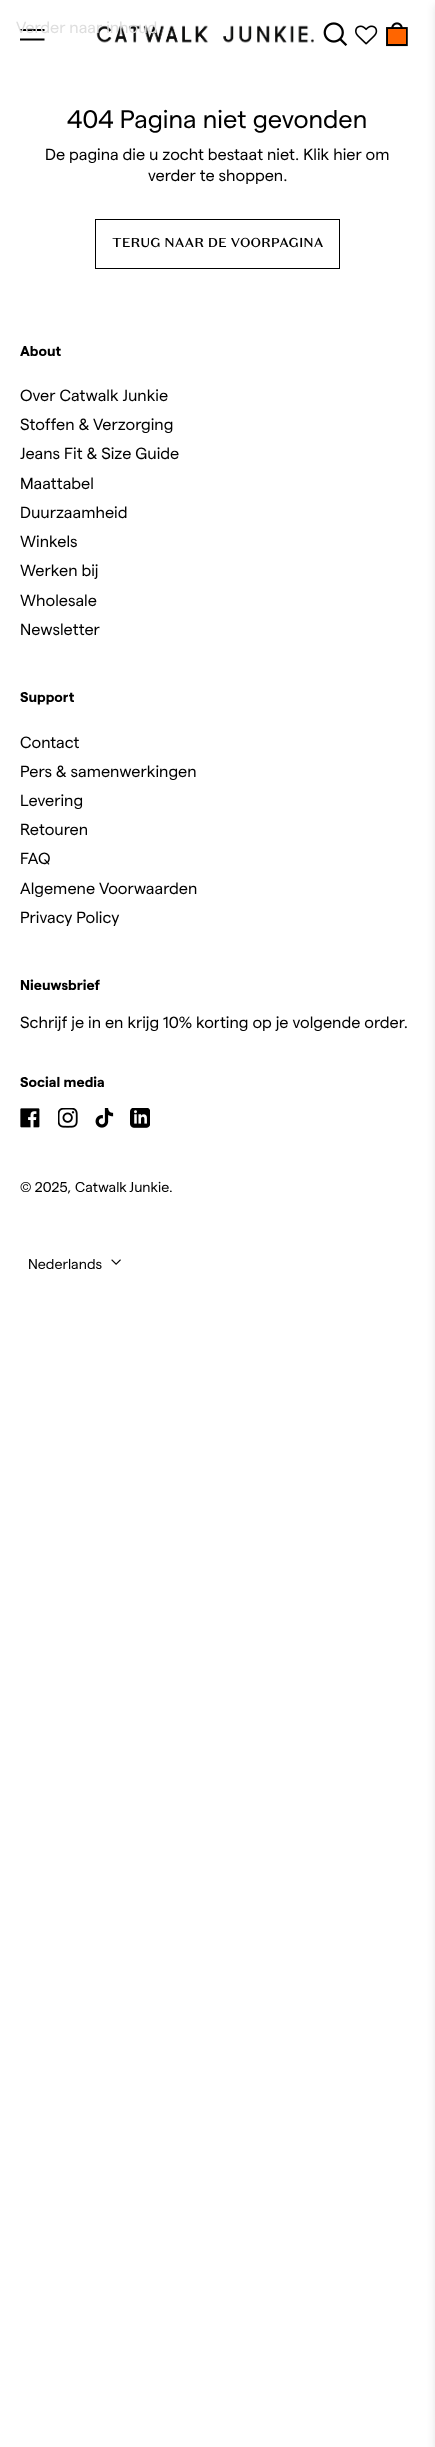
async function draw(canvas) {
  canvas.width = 435
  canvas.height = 2447
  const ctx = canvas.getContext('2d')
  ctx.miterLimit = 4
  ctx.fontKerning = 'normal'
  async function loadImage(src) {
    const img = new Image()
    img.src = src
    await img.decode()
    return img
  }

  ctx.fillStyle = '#fff'
  ctx.fillRect(0, 0, 435, 2447)
  ctx.fillStyle = '#000'
  ctx.beginPath()
  ctx.moveTo(44.5, 38.5)
  ctx.lineTo(44.5, 40.5)
  ctx.lineTo(20, 40.5)
  ctx.lineTo(20, 38.5)
  ctx.closePath()
  ctx.moveTo(44.5, 29)
  ctx.lineTo(44.5, 31)
  ctx.lineTo(20, 31)
  ctx.lineTo(20, 29)
  ctx.closePath()
  ctx.fill('evenodd')
  ctx.drawImage(await loadImage('image0.png'), 96, 25, 218, 18)
  ctx.font = '16.25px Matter'
  ctx.fillStyle = '#dedede'
  ctx.fillText('Verder naar inhoud', 16, 33)
  ctx.fillStyle = '#0000001a'
  ctx.filter = 'blur(4px)'
  ctx.beginPath()
  ctx.rect(435, 5, 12, 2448)
  ctx.fill()
  ctx.filter = 'none'
  ctx.drawImage(await loadImage('image1.png'), 323, 22, 25, 24)
  ctx.drawImage(await loadImage('image2.png'), 355, 25, 23, 20)
  ctx.drawImage(await loadImage('image3.png'), 386, 22, 22, 25)
  ctx.font = '25.4px Matter'
  ctx.fillStyle = '#000'
  ctx.fillText('404 Pagina niet gevonden', 67, 128)
  ctx.font = '16.25px Matter'
  ctx.fillText('De pagina die u zocht bestaat niet. Klik hier om', 45, 160)
  ctx.fillText('verder te shoppen.', 148, 181)
  ctx.strokeStyle = '#000'
  ctx.strokeRect(95.5, 219.5, 244, 49)
  ctx.font = '500 13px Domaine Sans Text'
  ctx.fillText('TERUG NAAR DE VOORPAGINA', 112, 247)
  ctx.font = 'bold 14.25px Matter'
  ctx.fillText('About', 20, 356)
  ctx.font = '16.25px Matter'
  ctx.fillText('Over Catwalk Junkie', 20, 401)
  ctx.fillText('Stoffen & Verzorging', 20, 430)
  ctx.fillText('Jeans Fit & Size Guide', 20, 459)
  ctx.fillText('Maattabel', 20, 489)
  ctx.fillText('Duurzaamheid', 20, 518)
  ctx.fillText('Winkels', 20, 547)
  ctx.fillText('Werken bij', 20, 576)
  ctx.fillText('Wholesale', 20, 606)
  ctx.fillText('Newsletter', 20, 635)
  ctx.font = 'bold 14.25px Matter'
  ctx.fillText('Support', 20, 702)
  ctx.font = '16.25px Matter'
  ctx.fillText('Contact', 20, 748)
  ctx.fillText('Pers & samenwerkingen', 20, 777)
  ctx.fillText('Levering', 20, 806)
  ctx.fillText('Retouren', 20, 835)
  ctx.fillText('FAQ', 20, 864)
  ctx.fillText('Algemene Voorwaarden', 20, 894)
  ctx.fillText('Privacy Policy', 20, 923)
  ctx.font = 'bold 14.25px Matter'
  ctx.fillText('Nieuwsbrief', 20, 990)
  ctx.font = '16.25px Matter'
  ctx.fillText('Schrijf je in en krijg 10% korting op je volgende order.', 20, 1028)
  ctx.font = 'bold 14.25px Matter'
  ctx.fillText('Social media', 20, 1087)
  ctx.drawImage(await loadImage('image4.png'), 20, 1108, 20, 20)
  ctx.drawImage(await loadImage('image5.png'), 58, 1108, 20, 20)
  ctx.drawImage(await loadImage('image6.png'), 95, 1108, 19, 20)
  ctx.drawImage(await loadImage('image7.png'), 130, 1108, 20, 20)
  ctx.font = '14.25px Matter'
  ctx.fillText('© 2025,', 20, 1192)
  ctx.wordSpacing = '-1px'
  ctx.fillText('Catwalk Junkie', 75, 1192)
  ctx.wordSpacing = '0px'
  ctx.fillText('.', 169, 1192)
  ctx.fillText('Nederlands', 28, 1269)
  ctx.drawImage(await loadImage('image8.png'), 111, 1259, 10, 6)
}

draw(document.querySelector('canvas'))
